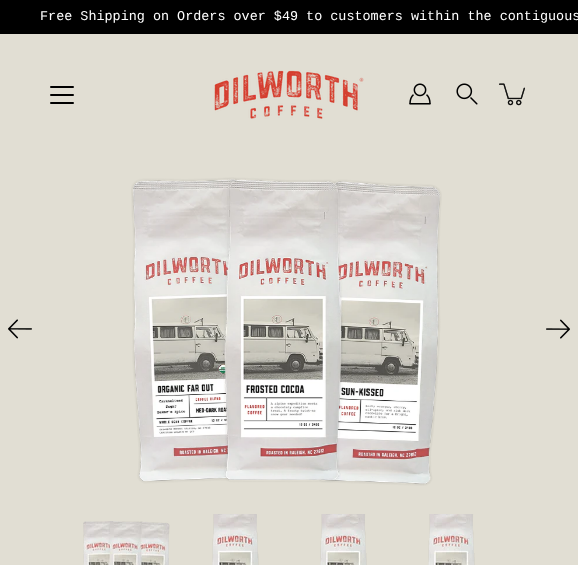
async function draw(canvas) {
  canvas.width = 578
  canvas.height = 565
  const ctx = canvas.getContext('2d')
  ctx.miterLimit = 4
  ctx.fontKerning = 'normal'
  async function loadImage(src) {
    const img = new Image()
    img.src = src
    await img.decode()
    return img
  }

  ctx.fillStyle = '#e1ded3'
  ctx.fillRect(0, 0, 578, 565)
  ctx.fillStyle = '#000'
  ctx.fillRect(0, 0, 578, 34)
  ctx.font = '13.45px Liberation Mono'
  ctx.fillStyle = '#fff'
  ctx.fillText('Free Shipping on Orders over $49 to customers within the contiguous', 40, 20)
  ctx.drawImage(await loadImage('image0.png'), 214, 70, 150, 49)
  ctx.fillStyle = '#000'
  ctx.beginPath()
  ctx.roundRect(50, 94, 24, 2, 1)
  ctx.fill()
  ctx.beginPath()
  ctx.roundRect(50, 86, 24, 2, 1)
  ctx.fill()
  ctx.beginPath()
  ctx.roundRect(50, 102, 24, 2, 1)
  ctx.fill()
  ctx.drawImage(await loadImage('image1.png'), 409, 83, 22, 22)
  ctx.drawImage(await loadImage('image2.png'), 456, 83, 22, 22)
  ctx.drawImage(await loadImage('image3.png'), 499, 83, 26, 23)
  ctx.drawImage(await loadImage('image4.png'), 8, 319, 24, 20)
  ctx.drawImage(await loadImage('image5.png'), 131, 177, 311, 309)
  ctx.drawImage(await loadImage('image6.png'), 546, 319, 24, 20)
  ctx.drawImage(await loadImage('image7.png'), 83, 521, 87, 44)
  ctx.drawImage(await loadImage('image8.png'), 212, 514, 47, 51)
  ctx.drawImage(await loadImage('image9.png'), 320, 514, 47, 51)
  ctx.drawImage(await loadImage('image10.png'), 428, 514, 47, 51)
}

draw(document.querySelector('canvas'))
